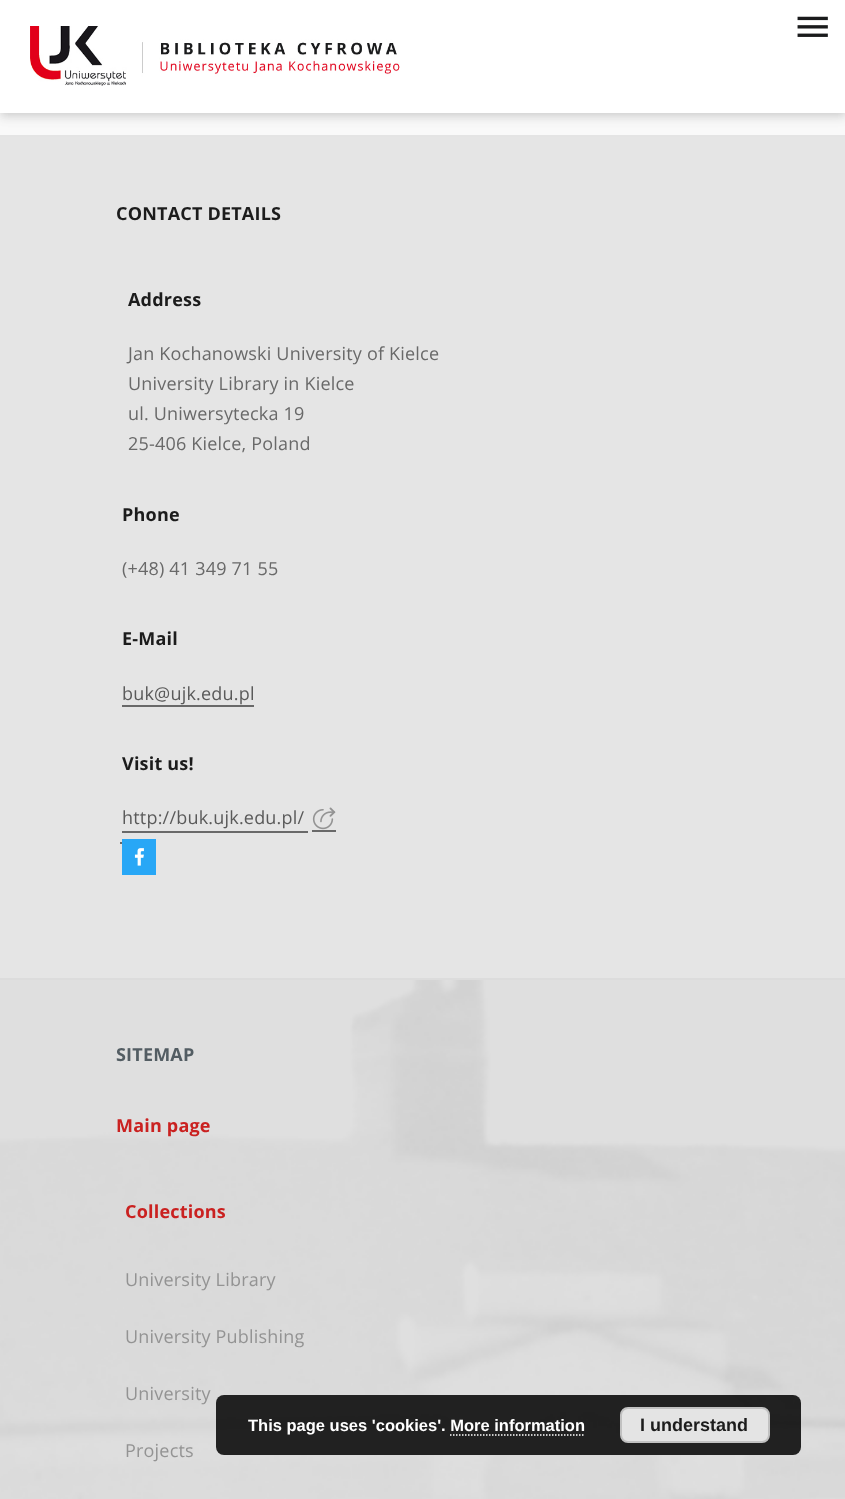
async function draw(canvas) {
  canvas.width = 845
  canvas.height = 1499
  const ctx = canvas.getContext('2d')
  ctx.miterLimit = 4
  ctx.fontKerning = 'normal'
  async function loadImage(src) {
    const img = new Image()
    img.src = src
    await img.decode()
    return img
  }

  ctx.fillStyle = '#f9f9f9'
  ctx.fillRect(0, 0, 845, 1499)
  ctx.fillStyle = '#e4e4e4'
  ctx.fillRect(0, 135, 845, 2)
  ctx.fillStyle = '#e5e5e5'
  ctx.fillRect(0, 137, 845, 841)
  ctx.fillStyle = '#00000014'
  ctx.filter = 'blur(7.5px)'
  ctx.beginPath()
  ctx.rect(0, 2, 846, 112)
  ctx.fill()
  ctx.filter = 'none'
  ctx.fillStyle = '#0000000f'
  ctx.filter = 'blur(4px)'
  ctx.beginPath()
  ctx.rect(0, 6, 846, 113)
  ctx.fill()
  ctx.filter = 'none'
  ctx.filter = 'blur(3px)'
  ctx.beginPath()
  ctx.rect(2, 5, 843, 109)
  ctx.fill()
  ctx.filter = 'none'
  ctx.fillStyle = '#fff'
  ctx.fillRect(0, 0, 845, 113)
  ctx.drawImage(await loadImage('image0.png'), 30, 26, 370, 60)
  ctx.drawImage(await loadImage('image1.png'), 797, 16, 31, 21)
  ctx.letterSpacing = '0.2px'
  ctx.font = 'bold 18px Open Sans'
  ctx.fillStyle = '#1c1c1c'
  ctx.fillText('CONTACT DETAILS', 116, 220)
  ctx.fillText('Address', 128, 306)
  ctx.font = '18px Open Sans'
  ctx.fillStyle = '#696969'
  ctx.fillText('Jan Kochanowski University of Kielce', 128, 360)
  ctx.fillText('University Library in Kielce', 128, 390)
  ctx.fillText('ul. Uniwersytecka 19', 128, 420)
  ctx.fillText('25-406 Kielce, Poland', 128, 450)
  ctx.font = 'bold 18px Open Sans'
  ctx.fillStyle = '#1c1c1c'
  ctx.fillText('Phone', 122, 521)
  ctx.font = '18px Open Sans'
  ctx.fillStyle = '#696969'
  ctx.fillText('(+48) 41 349 71 55', 122, 575)
  ctx.font = 'bold 18px Open Sans'
  ctx.fillStyle = '#1c1c1c'
  ctx.fillText('E-Mail', 122, 645)
  ctx.font = '18px Open Sans'
  ctx.fillStyle = '#5a5a5a'
  ctx.fillText('buk@ujk.edu.pl', 122, 700)
  ctx.fillStyle = '#696969'
  ctx.fillRect(122, 705, 132, 2)
  ctx.font = 'bold 18px Open Sans'
  ctx.fillStyle = '#1c1c1c'
  ctx.fillText('Visit us!', 122, 770)
  ctx.font = '18px Open Sans'
  ctx.fillStyle = '#5a5a5a'
  ctx.fillText('http://buk.ujk.edu.pl/', 122, 824)
  ctx.fillStyle = '#696969'
  ctx.fillRect(122, 831, 186, 2)
  ctx.fillRect(312, 830, 24, 2)
  ctx.drawImage(await loadImage('image2.png'), 312, 807, 24, 23)
  ctx.fillRect(120, 842, 2, 2)
  ctx.fillStyle = '#28a7f6'
  ctx.fillRect(122, 839, 34, 36)
  ctx.drawImage(await loadImage('image3.png'), 134, 848, 10, 18)
  ctx.fillStyle = '#dcdcdc'
  ctx.fillRect(0, 978, 845, 521)
  ctx.drawImage(await loadImage('image4.png'), 0, 980, 845, 519)
  ctx.font = 'bold 18px Open Sans'
  ctx.fillStyle = '#535d63'
  ctx.fillText('SITEMAP', 116, 1061)
  ctx.fillStyle = '#ca2120'
  ctx.fillText('Main page', 116, 1132)
  ctx.fillText('Collections', 125, 1218)
  ctx.font = '18px Open Sans'
  ctx.fillStyle = '#939393'
  ctx.fillText('University Library', 125, 1286)
  ctx.fillText('University Publishing', 125, 1343)
  ctx.fillText('University', 125, 1400)
  ctx.fillText('Projects', 125, 1457)
  ctx.fillStyle = '#000000d9'
  ctx.beginPath()
  ctx.roundRect(216, 1395, 585, 60, 8)
  ctx.fill()
  ctx.letterSpacing = '0px'
  ctx.font = 'bold 16.5px Liberation Sans'
  ctx.fillStyle = '#fff'
  ctx.fillText('This page uses \'cookies\'. More information', 248, 1431)
  ctx.fillStyle = '#e4e4e4'
  ctx.beginPath()
  ctx.roundRect(621, 1408, 148, 34, 7)
  ctx.fill()
  ctx.strokeStyle = '#c1c1c1'
  ctx.lineWidth = 2
  ctx.stroke()
  ctx.font = 'bold 18px Liberation Sans'
  ctx.fillStyle = '#1c1c1c'
  ctx.fillText('I understand', 640, 1431)
  ctx.beginPath()
  ctx.moveTo(450, 1435)
  ctx.lineTo(585, 1435)
  ctx.strokeStyle = '#fff'
  ctx.lineWidth = 1.5
  ctx.setLineDash([1.5, 1.5])
  ctx.stroke()
}

draw(document.querySelector('canvas'))
